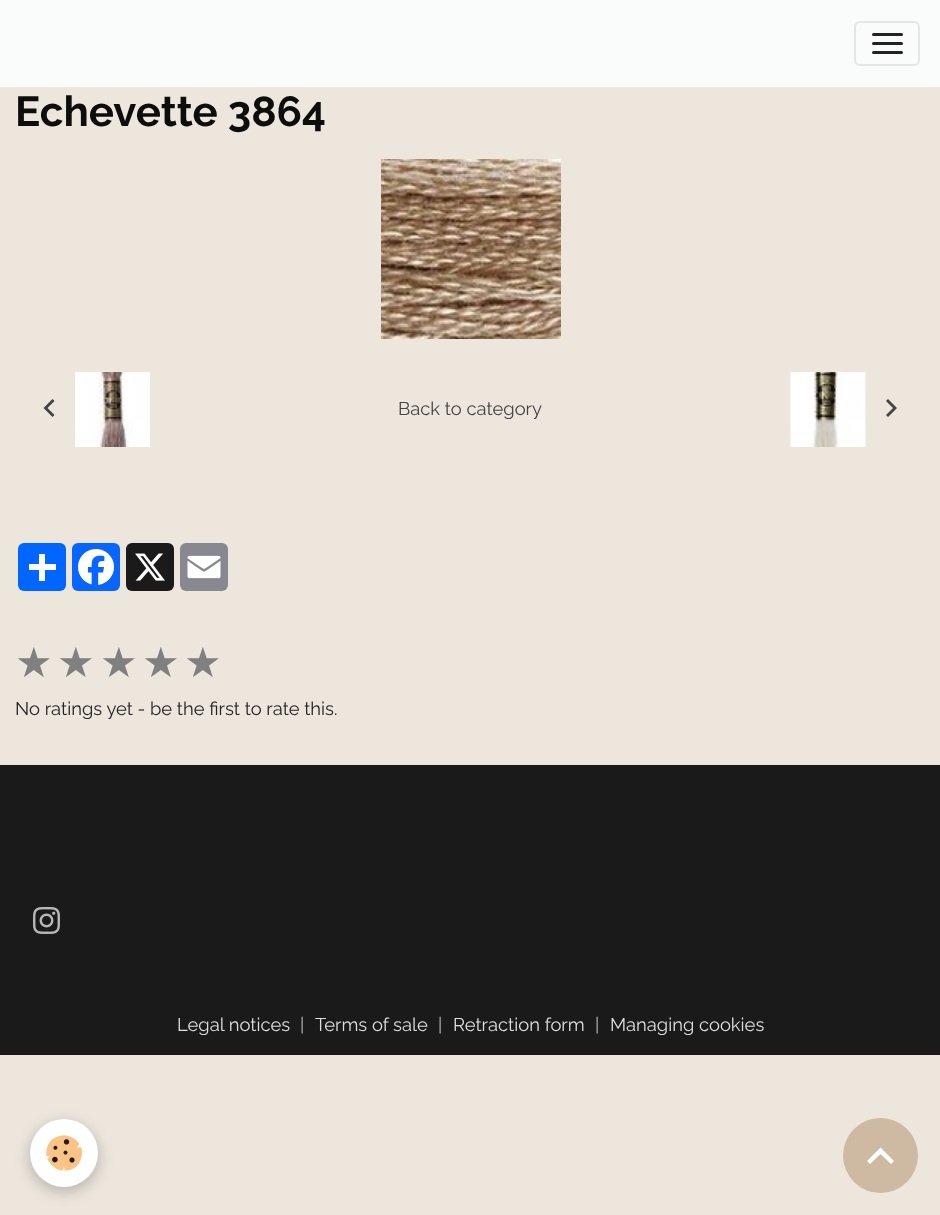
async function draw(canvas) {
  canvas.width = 940
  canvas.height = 1215
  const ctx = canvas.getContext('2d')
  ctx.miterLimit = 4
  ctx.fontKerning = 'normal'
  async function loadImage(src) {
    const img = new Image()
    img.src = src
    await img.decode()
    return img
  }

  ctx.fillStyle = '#ece6dd'
  ctx.fillRect(0, 0, 940, 1215)
  ctx.fillStyle = '#fafbfb'
  ctx.fillRect(0, 0, 940, 87)
  ctx.beginPath()
  ctx.roundRect(855, 22, 64, 43, 5)
  ctx.strokeStyle = '#e4e5e5'
  ctx.lineWidth = 2
  ctx.stroke()
  ctx.fillStyle = '#222'
  ctx.beginPath()
  ctx.roundRect(872, 33, 31, 3, 1.5)
  ctx.fill()
  ctx.beginPath()
  ctx.roundRect(872, 42, 31, 3, 1.5)
  ctx.fill()
  ctx.beginPath()
  ctx.roundRect(872, 51, 31, 3, 1.5)
  ctx.fill()
  ctx.font = 'bold 42px Raleway'
  ctx.fillStyle = '#0d0d0d'
  ctx.fillText('Echevette 3864', 15, 126)
  ctx.drawImage(await loadImage('image0.png'), 381, 159, 180, 180)
  ctx.fillStyle = '#444'
  ctx.beginPath()
  ctx.moveTo(54.5, 401)
  ctx.lineTo(47.5, 408)
  ctx.lineTo(54.5, 415)
  ctx.lineTo(52.5, 417)
  ctx.lineTo(43.5, 408)
  ctx.lineTo(52.5, 399)
  ctx.closePath()
  ctx.fill()
  ctx.drawImage(await loadImage('image1.png'), 75, 372, 75, 75)
  ctx.font = '18.4px Raleway'
  ctx.fillText('Back to category', 398, 415)
  ctx.drawImage(await loadImage('image2.png'), 790, 372, 76, 75)
  ctx.beginPath()
  ctx.moveTo(888, 399)
  ctx.lineTo(897, 408)
  ctx.lineTo(888, 417)
  ctx.lineTo(886, 415)
  ctx.lineTo(893, 408)
  ctx.lineTo(886, 401)
  ctx.closePath()
  ctx.fill()
  ctx.fillStyle = '#0166ff'
  ctx.beginPath()
  ctx.roundRect(18, 543, 48, 48, 6)
  ctx.fill()
  ctx.fillStyle = '#fff'
  ctx.fillRect(39, 554, 6, 27)
  ctx.fillRect(29, 564, 27, 6)
  ctx.fillStyle = '#0866ff'
  ctx.beginPath()
  ctx.roundRect(72, 543, 48, 48, 6)
  ctx.fill()
  ctx.drawImage(await loadImage('image3.png'), 78, 549, 36, 36)
  ctx.fillStyle = '#1a1a1a'
  ctx.beginPath()
  ctx.roundRect(126, 543, 48, 48, 6)
  ctx.fill()
  ctx.drawImage(await loadImage('image4.png'), 135, 553, 30, 28)
  ctx.fillStyle = '#888990'
  ctx.beginPath()
  ctx.roundRect(180, 543, 48, 48, 6)
  ctx.fill()
  ctx.drawImage(await loadImage('image5.png'), 187, 555, 34, 24)
  ctx.font = '42px DejaVu Sans'
  ctx.fillStyle = '#808080'
  ctx.fillText('★', 15, 677)
  ctx.fillText('★', 57, 677)
  ctx.fillText('★', 100, 677)
  ctx.fillText('★', 142, 677)
  ctx.fillText('★', 184, 677)
  ctx.font = '18.4px Raleway'
  ctx.fillStyle = '#232323'
  ctx.fillText('No ratings yet - be the first to rate this.', 15, 715)
  ctx.fillStyle = '#1a1a1a'
  ctx.fillRect(0, 765, 940, 290)
  ctx.drawImage(await loadImage('image6.png'), 33, 906, 27, 28)
  ctx.fillStyle = '#dfdfdf'
  ctx.fillText('Legal notices', 177, 1031)
  ctx.fillStyle = '#b8b8b8'
  ctx.fillText('|', 300, 1031)
  ctx.fillStyle = '#dfdfdf'
  ctx.fillText('Terms of sale', 315, 1031)
  ctx.fillStyle = '#b8b8b8'
  ctx.fillText('|', 438, 1031)
  ctx.fillStyle = '#dfdfdf'
  ctx.fillText('Retraction form', 453, 1031)
  ctx.fillStyle = '#b8b8b8'
  ctx.fillText('|', 595, 1031)
  ctx.fillStyle = '#dfdfdf'
  ctx.fillText('Managing cookies', 610, 1031)
  ctx.fillStyle = '#0000003d'
  ctx.filter = 'blur(7.5px)'
  ctx.beginPath()
  ctx.roundRect(30, 1124, 68, 67, 33.5)
  ctx.fill()
  ctx.filter = 'none'
  ctx.fillStyle = '#fff'
  ctx.beginPath()
  ctx.arc(64, 1153, 34, 0, 2 * Math.PI)
  ctx.fill()
  ctx.drawImage(await loadImage('image7.png'), 46, 1135, 37, 36)
  ctx.fillStyle = '#cebaa2'
  ctx.beginPath()
  ctx.arc(880.5, 1155.5, 37.5, 0, 2 * Math.PI)
  ctx.fill()
  ctx.fillStyle = '#fff'
  ctx.beginPath()
  ctx.moveTo(880.5, 1147.5)
  ctx.lineTo(894, 1161)
  ctx.lineTo(891, 1164)
  ctx.lineTo(880.5, 1154)
  ctx.lineTo(870, 1164)
  ctx.lineTo(867, 1161)
  ctx.closePath()
  ctx.fill()
}

draw(document.querySelector('canvas'))
